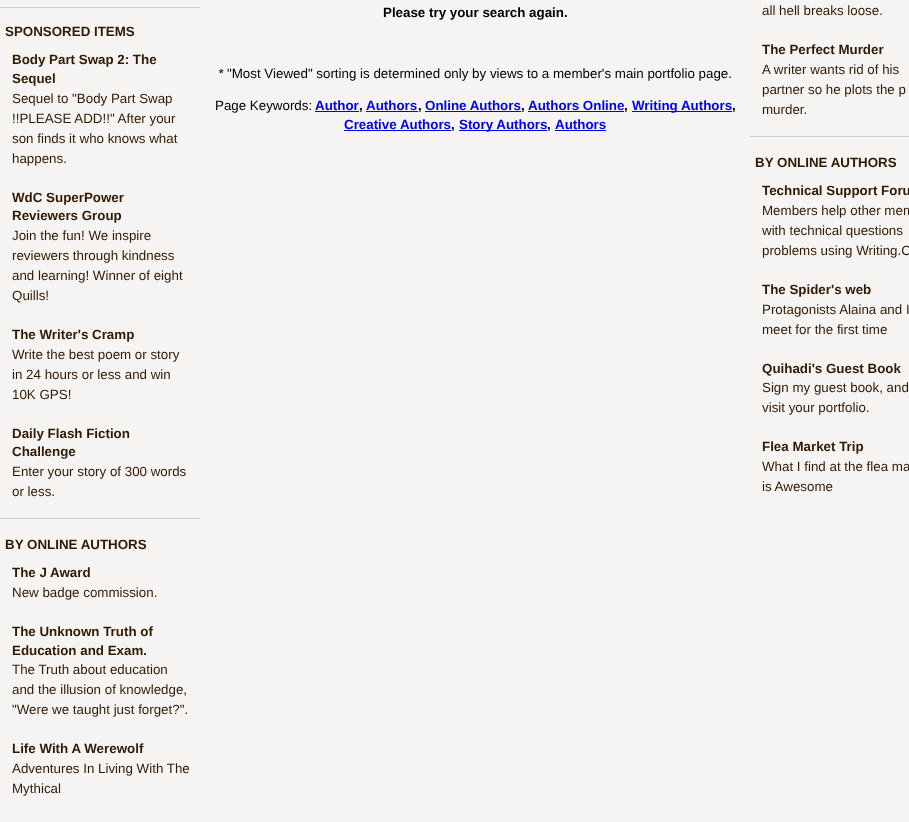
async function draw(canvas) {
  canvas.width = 909
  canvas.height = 822
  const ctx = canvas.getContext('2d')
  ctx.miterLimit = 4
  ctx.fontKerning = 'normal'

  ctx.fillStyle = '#f5f4f2'
  ctx.fillRect(0, 0, 909, 822)
  ctx.fillStyle = '#d0cfce'
  ctx.fillRect(0, 7, 200, 1)
  ctx.font = 'bold 13.35px Liberation Sans'
  ctx.fillStyle = '#311a03'
  ctx.fillText('SPONSORED ITEMS', 5, 36)
  ctx.fillText('Body Part Swap 2: The', 12, 64)
  ctx.fillText('Sequel', 12, 83)
  ctx.font = '13.35px Liberation Sans'
  ctx.fillText('Sequel to "Body Part Swap', 12, 103)
  ctx.fillText('!!PLEASE ADD!!" After your', 12, 123)
  ctx.fillText('son finds it who knows what', 12, 143)
  ctx.fillText('happens.', 12, 163)
  ctx.font = 'bold 13.35px Liberation Sans'
  ctx.fillText('WdC SuperPower', 12, 202)
  ctx.fillText('Reviewers Group', 12, 220)
  ctx.font = '13.35px Liberation Sans'
  ctx.fillText('Join the fun! We inspire', 12, 240)
  ctx.fillText('reviewers through kindness', 12, 260)
  ctx.fillText('and learning! Winner of eight', 12, 280)
  ctx.fillText('Quills!', 12, 300)
  ctx.font = 'bold 13.35px Liberation Sans'
  ctx.fillText('The Writer\'s Cramp', 12, 339)
  ctx.font = '13.35px Liberation Sans'
  ctx.fillText('Write the best poem or story', 12, 359)
  ctx.fillText('in 24 hours or less and win', 12, 379)
  ctx.fillText('10K GPS!', 12, 399)
  ctx.font = 'bold 13.35px Liberation Sans'
  ctx.fillText('Daily Flash Fiction', 12, 438)
  ctx.fillText('Challenge', 12, 456)
  ctx.font = '13.35px Liberation Sans'
  ctx.fillText('Enter your story of 300 words', 12, 476)
  ctx.fillText('or less.', 12, 496)
  ctx.fillStyle = '#d0cfce'
  ctx.fillRect(0, 518, 200, 1)
  ctx.font = 'bold 13.35px Liberation Sans'
  ctx.fillStyle = '#311a03'
  ctx.fillText('BY ONLINE AUTHORS', 5, 549)
  ctx.fillText('The J Award', 12, 577)
  ctx.font = '13.35px Liberation Sans'
  ctx.fillText('New badge commission.', 12, 597)
  ctx.font = 'bold 13.35px Liberation Sans'
  ctx.fillText('The Unknown Truth of', 12, 636)
  ctx.fillText('Education and Exam.', 12, 655)
  ctx.font = '13.35px Liberation Sans'
  ctx.fillText('The Truth about education', 12, 674)
  ctx.fillText('and the illusion of knowledge,', 12, 694)
  ctx.fillText('"Were we taught just forget?".', 12, 714)
  ctx.font = 'bold 13.35px Liberation Sans'
  ctx.fillText('Life With A Werewolf', 12, 753)
  ctx.font = '13.35px Liberation Sans'
  ctx.fillText('Adventures In Living With The', 12, 773)
  ctx.fillText('Mythical', 12, 793)
  ctx.font = 'bold 13.35px Liberation Sans'
  ctx.fillStyle = '#000'
  ctx.fillText('Please try your search again.', 383, 17)
  ctx.font = 'italic 13.35px Liberation Sans'
  ctx.fillText('*', 218, 78)
  ctx.font = '13.35px Liberation Sans'
  ctx.fillText('"Most Viewed" sorting is determined only by views to a member\'s main portfolio page.', 227, 78)
  ctx.fillText('Page Keywords:', 215, 110)
  ctx.font = 'bold 13.35px Liberation Sans'
  ctx.fillStyle = '#00e'
  ctx.fillText('Author', 315, 110)
  ctx.fillStyle = '#000'
  ctx.fillText(',', 359, 110)
  ctx.fillStyle = '#00e'
  ctx.fillRect(315, 111, 44, 1)
  ctx.fillText('Authors', 366, 110)
  ctx.fillStyle = '#000'
  ctx.fillText(',', 418, 110)
  ctx.fillStyle = '#00e'
  ctx.fillRect(366, 111, 52, 1)
  ctx.fillText('Online Authors', 425, 110)
  ctx.fillStyle = '#000'
  ctx.fillText(',', 521, 110)
  ctx.fillStyle = '#00e'
  ctx.fillRect(425, 111, 96, 1)
  ctx.fillText('Authors Online', 528, 110)
  ctx.fillStyle = '#000'
  ctx.fillText(',', 624, 110)
  ctx.fillStyle = '#00e'
  ctx.fillRect(528, 111, 96, 1)
  ctx.fillRect(632, 111, 100, 1)
  ctx.fillText('Writing Authors', 632, 110)
  ctx.fillStyle = '#000'
  ctx.fillText(',', 732, 110)
  ctx.fillStyle = '#00e'
  ctx.fillText('Creative Authors', 344, 129)
  ctx.fillStyle = '#000'
  ctx.fillText(',', 451, 129)
  ctx.fillStyle = '#00e'
  ctx.fillRect(344, 130, 107, 1)
  ctx.fillRect(459, 130, 88, 1)
  ctx.fillText('Story Authors', 459, 129)
  ctx.fillStyle = '#000'
  ctx.fillText(',', 547, 129)
  ctx.fillStyle = '#00e'
  ctx.fillRect(555, 130, 51, 1)
  ctx.fillText('Authors', 555, 129)
  ctx.font = '13.35px Liberation Sans'
  ctx.fillStyle = '#311a03'
  ctx.fillText('all hell breaks loose.', 762, 15)
  ctx.font = 'bold 13.35px Liberation Sans'
  ctx.fillText('The Perfect Murder', 762, 54)
  ctx.font = '13.35px Liberation Sans'
  ctx.fillText('A writer wants rid of his', 762, 74)
  ctx.fillText('partner so he plots the p', 762, 94)
  ctx.fillText('murder.', 762, 114)
  ctx.fillStyle = '#d0cfce'
  ctx.fillRect(750, 136, 159, 1)
  ctx.font = 'bold 13.35px Liberation Sans'
  ctx.fillStyle = '#311a03'
  ctx.fillText('BY ONLINE AUTHORS', 755, 167)
  ctx.fillText('Technical Support Foru', 762, 195)
  ctx.font = '13.35px Liberation Sans'
  ctx.fillText('Members help other mem', 762, 215)
  ctx.fillText('with technical questions', 762, 235)
  ctx.fillText('problems using Writing.C', 762, 255)
  ctx.font = 'bold 13.35px Liberation Sans'
  ctx.fillText('The Spider\'s web', 762, 294)
  ctx.font = '13.35px Liberation Sans'
  ctx.fillText('Protagonists Alaina and I', 762, 314)
  ctx.fillText('meet for the first time', 762, 334)
  ctx.font = 'bold 13.35px Liberation Sans'
  ctx.fillText('Quihadi\'s Guest Book', 762, 373)
  ctx.font = '13.35px Liberation Sans'
  ctx.fillText('Sign my guest book, and', 762, 392)
  ctx.fillText('visit your portfolio.', 762, 412)
  ctx.font = 'bold 13.35px Liberation Sans'
  ctx.fillText('Flea Market Trip', 762, 451)
  ctx.font = '13.35px Liberation Sans'
  ctx.fillText('What I find at the flea ma', 762, 471)
  ctx.fillText('is Awesome', 762, 491)
}

draw(document.querySelector('canvas'))
